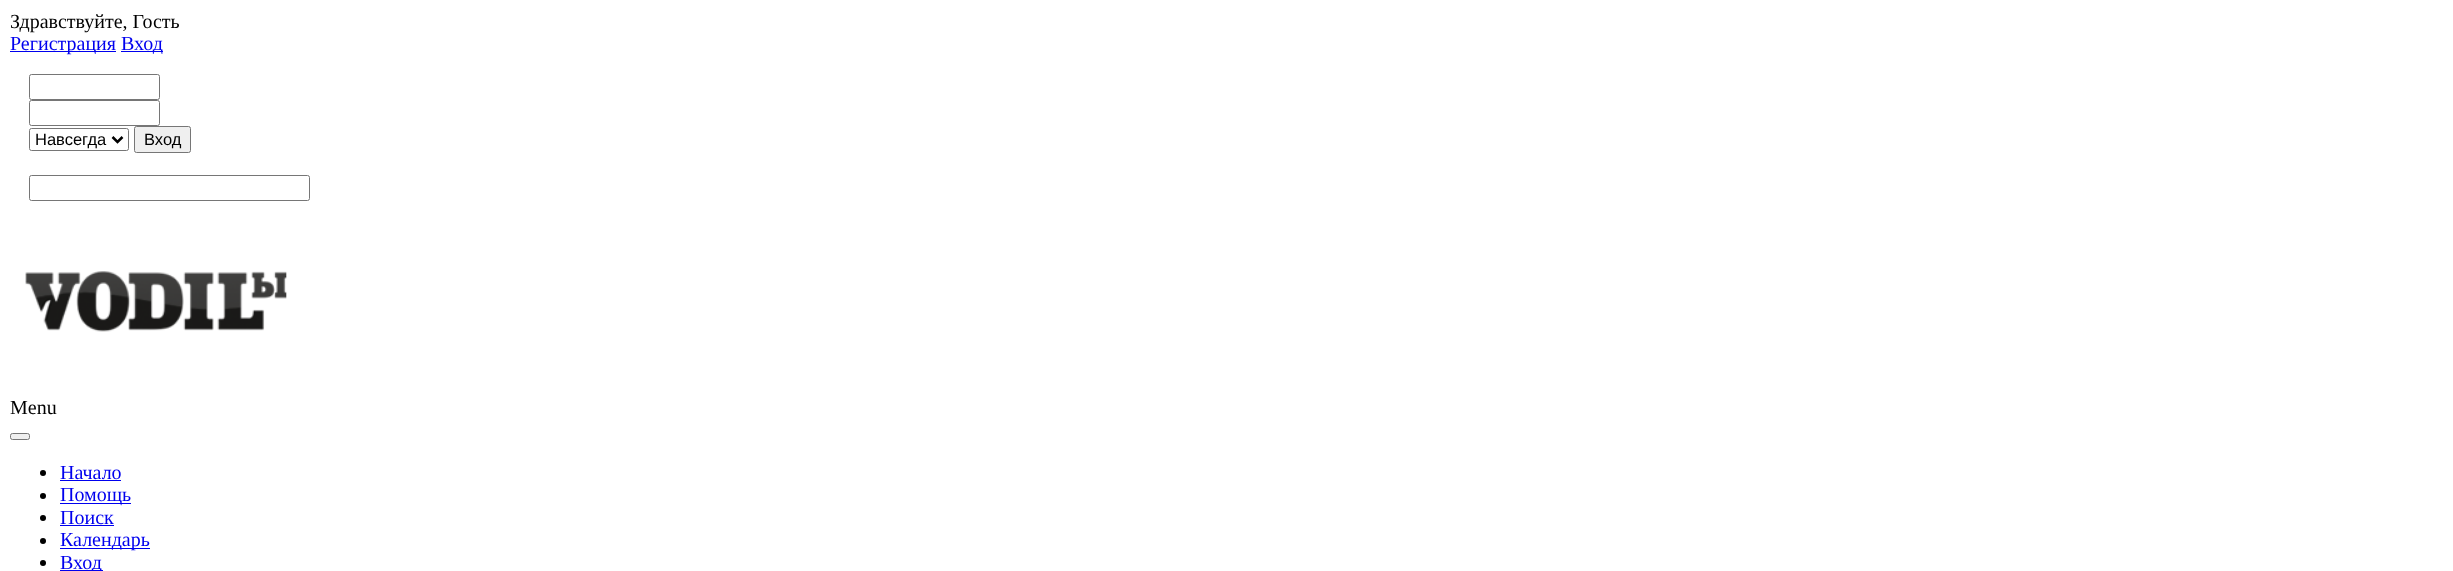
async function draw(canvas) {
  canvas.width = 2453
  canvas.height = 571
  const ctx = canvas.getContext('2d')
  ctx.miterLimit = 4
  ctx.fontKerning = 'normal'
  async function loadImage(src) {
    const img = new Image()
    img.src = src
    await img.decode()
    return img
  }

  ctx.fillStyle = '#fff'
  ctx.fillRect(0, 0, 2453, 571)
  ctx.font = '20px Liberation Serif'
  ctx.fillStyle = '#000'
  ctx.fillText('Здравствуйте, Гость', 10, 28)
  ctx.fillStyle = '#00e'
  ctx.fillRect(10, 51, 106, 1)
  ctx.fillText('Регистрация', 10, 50)
  ctx.fillRect(121, 51, 42, 1)
  ctx.fillText('Вход', 121, 50)
  ctx.beginPath()
  ctx.roundRect(29.5, 74.5, 130, 25, 2)
  ctx.strokeStyle = '#767676'
  ctx.stroke()
  ctx.beginPath()
  ctx.roundRect(29.5, 100.5, 130, 25, 2)
  ctx.stroke()
  ctx.beginPath()
  ctx.roundRect(29.5, 128.5, 99, 22, 2)
  ctx.stroke()
  ctx.beginPath()
  ctx.moveTo(112.5, 137)
  ctx.lineTo(117.5, 142)
  ctx.lineTo(122.5, 137)
  ctx.strokeStyle = '#000'
  ctx.lineWidth = 2.5
  ctx.stroke()
  ctx.font = '16.5px Liberation Sans'
  ctx.fillStyle = '#000'
  ctx.fillText('Навсегда', 35, 145)
  ctx.fillStyle = '#efefef'
  ctx.beginPath()
  ctx.roundRect(134.5, 126.5, 56, 26, 2)
  ctx.fill()
  ctx.strokeStyle = '#767676'
  ctx.lineWidth = 1
  ctx.stroke()
  ctx.fillStyle = '#000'
  ctx.fillText('Вход', 144, 145)
  ctx.beginPath()
  ctx.roundRect(29.5, 175.5, 280, 25, 2)
  ctx.stroke()
  ctx.drawImage(await loadImage('image0.png'), 25, 271, 262, 61)
  ctx.font = '20px Liberation Serif'
  ctx.fillText('Menu', 10, 414)
  ctx.fillStyle = '#efefef'
  ctx.beginPath()
  ctx.roundRect(10.5, 433.5, 19, 6, 2)
  ctx.fill()
  ctx.stroke()
  ctx.fillStyle = '#000'
  ctx.beginPath()
  ctx.arc(43, 473, 3, 0, 2 * Math.PI)
  ctx.fill()
  ctx.fillStyle = '#00e'
  ctx.fillText('Начало', 60, 479)
  ctx.fillRect(60, 480, 61, 1)
  ctx.fillStyle = '#000'
  ctx.beginPath()
  ctx.arc(43, 496, 3, 0, 2 * Math.PI)
  ctx.fill()
  ctx.fillStyle = '#00e'
  ctx.fillRect(60, 503, 71, 1)
  ctx.fillText('Помощь', 60, 501)
  ctx.fillStyle = '#000'
  ctx.beginPath()
  ctx.arc(43, 518, 3, 0, 2 * Math.PI)
  ctx.fill()
  ctx.fillStyle = '#00e'
  ctx.fillText('Поиск', 60, 524)
  ctx.fillRect(60, 525, 54, 1)
  ctx.fillStyle = '#000'
  ctx.beginPath()
  ctx.arc(43, 541, 3, 0, 2 * Math.PI)
  ctx.fill()
  ctx.fillStyle = '#00e'
  ctx.fillRect(60, 548, 90, 1)
  ctx.fillText('Календарь', 60, 546)
  ctx.fillStyle = '#000'
  ctx.beginPath()
  ctx.arc(43, 563, 3, 0, 2 * Math.PI)
  ctx.fill()
  ctx.fillStyle = '#00e'
  ctx.fillRect(60, 570, 43, 1)
  ctx.fillText('Вход', 60, 569)
}

draw(document.querySelector('canvas'))
